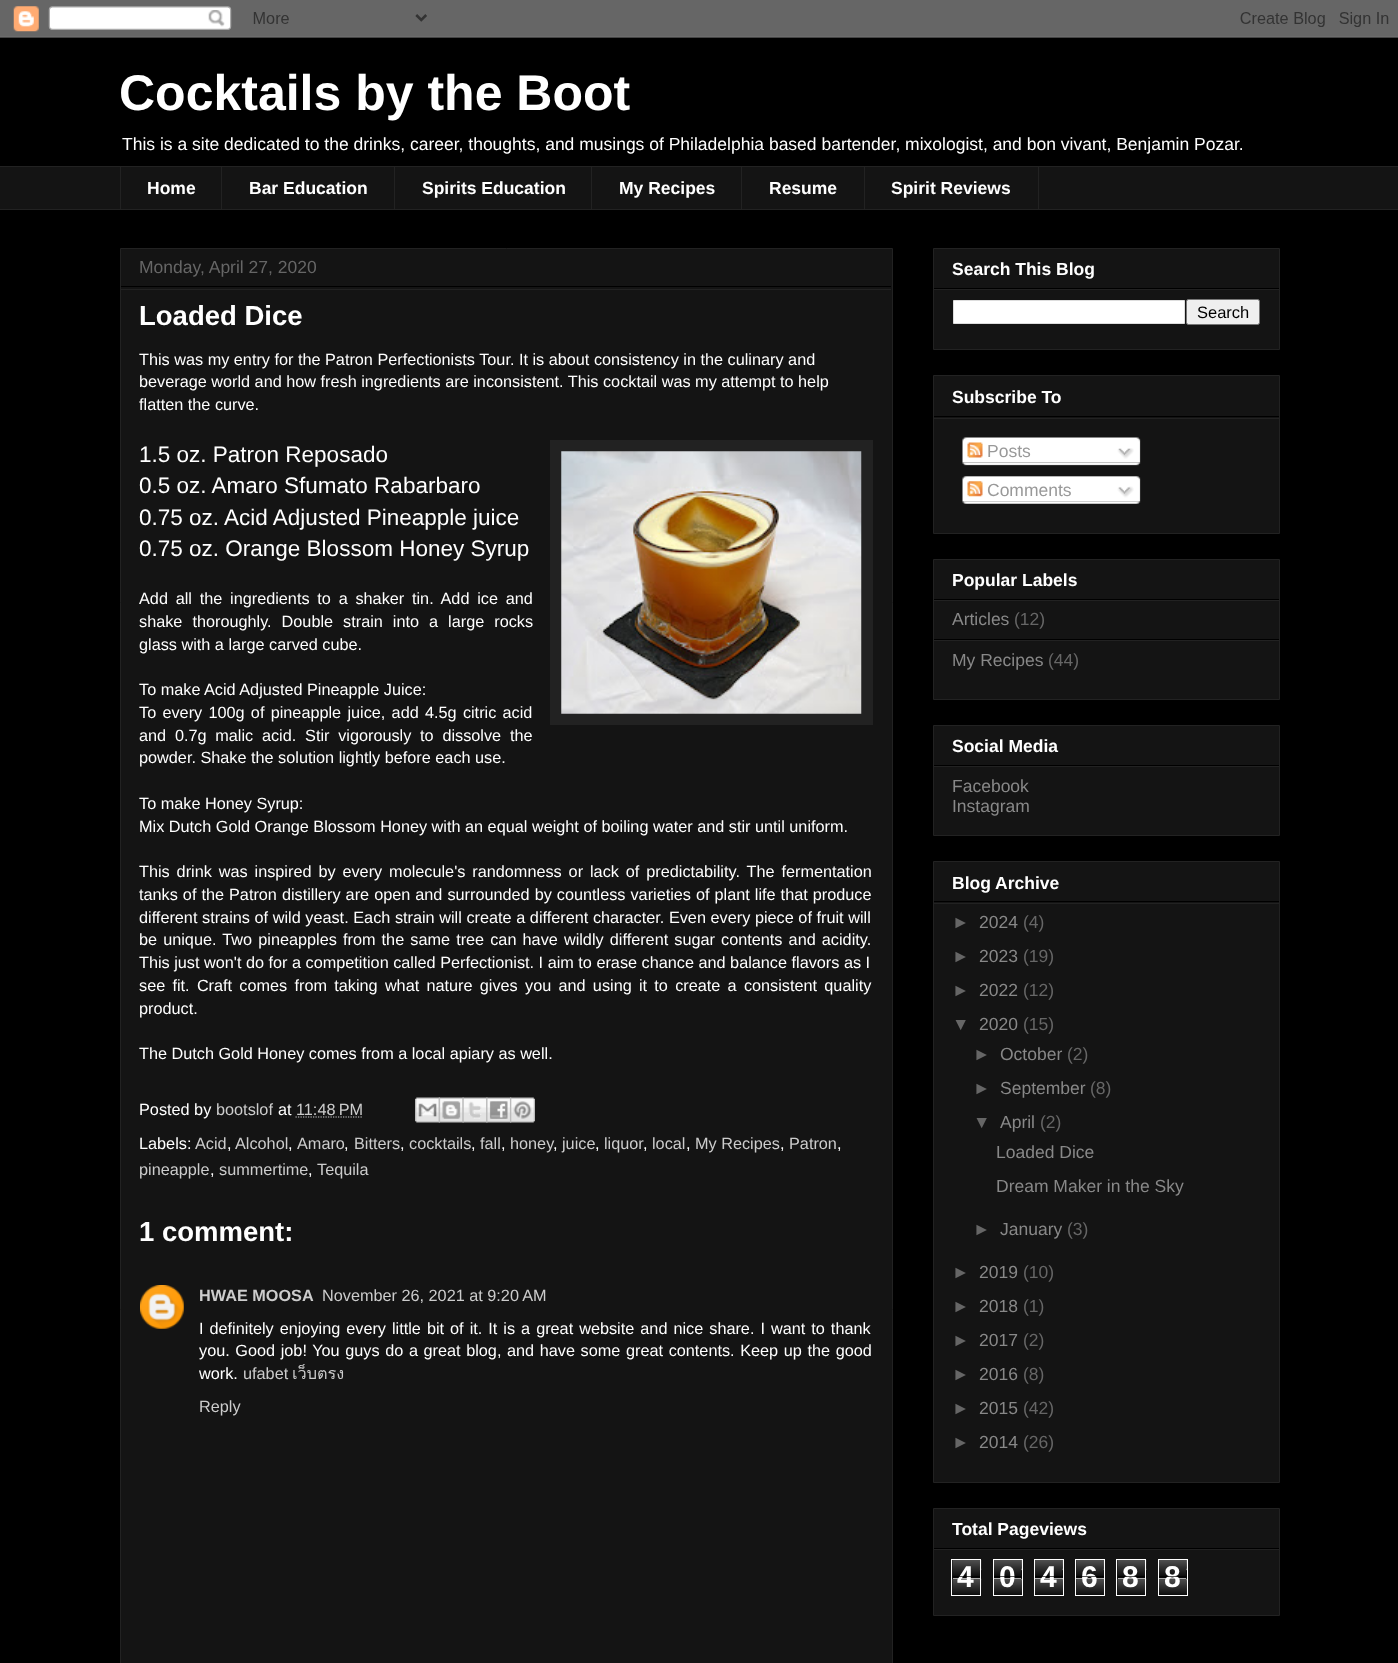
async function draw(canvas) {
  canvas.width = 1398
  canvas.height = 1663
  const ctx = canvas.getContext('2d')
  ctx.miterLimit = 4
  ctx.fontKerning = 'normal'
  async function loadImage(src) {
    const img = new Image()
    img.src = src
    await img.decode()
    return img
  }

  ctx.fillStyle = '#000'
  ctx.fillRect(0, 0, 1398, 1663)
  ctx.drawImage(await loadImage('image0.png'), 0, 0, 1398, 38)
  ctx.font = 'bold 50px Liberation Sans'
  ctx.fillStyle = '#fff'
  ctx.fillText('Cocktails by the Boot', 119, 110)
  ctx.font = '17.5px Liberation Sans'
  ctx.fillText('This is a site dedicated to the drinks, career, thoughts, and musings of Philadelphia based bartender, mixologist, and bon vivant, Benjamin Pozar.', 122, 150)
  ctx.fillStyle = '#141414'
  ctx.fillRect(0, 167, 1398, 42)
  ctx.fillStyle = '#222'
  ctx.fillRect(0, 166, 1398, 1)
  ctx.fillRect(120, 166, 1, 44)
  ctx.font = 'bold 17.5px Liberation Sans'
  ctx.fillStyle = '#fff'
  ctx.fillText('Home', 147, 194)
  ctx.fillStyle = '#222'
  ctx.fillRect(221, 166, 1, 44)
  ctx.fillStyle = '#fff'
  ctx.fillText('Bar Education', 249, 194)
  ctx.fillStyle = '#222'
  ctx.fillRect(394, 166, 1, 44)
  ctx.fillStyle = '#fff'
  ctx.fillText('Spirits Education', 422, 194)
  ctx.fillStyle = '#222'
  ctx.fillRect(591, 166, 1, 44)
  ctx.fillStyle = '#fff'
  ctx.fillText('My Recipes', 619, 194)
  ctx.fillStyle = '#222'
  ctx.fillRect(741, 166, 1, 44)
  ctx.fillStyle = '#fff'
  ctx.fillText('Resume', 769, 194)
  ctx.strokeStyle = '#222'
  ctx.strokeRect(864.5, 166.5, 174, 43)
  ctx.fillText('Spirit Reviews', 891, 194)
  ctx.fillStyle = '#222'
  ctx.fillRect(0, 209, 1398, 1)
  ctx.fillStyle = '#141414'
  ctx.beginPath()
  ctx.rect(120.5, 248.5, 772, 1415)
  ctx.fill()
  ctx.stroke()
  ctx.fillStyle = '#000'
  ctx.fillRect(121, 286, 770, 1)
  ctx.font = '17.5px Liberation Sans'
  ctx.fillStyle = '#666'
  ctx.fillText('Monday, April 27, 2020', 139, 273)
  ctx.fillStyle = '#222'
  ctx.fillRect(121, 289, 770, 1)
  ctx.font = 'bold 27.5px Liberation Sans'
  ctx.fillStyle = '#fff'
  ctx.fillText('Loaded Dice', 139, 325)
  ctx.font = '16.25px Liberation Sans'
  ctx.fillText('This was my entry for the Patron Perfectionists Tour. It is about consistency in the culinary and', 139, 365)
  ctx.fillText('beverage world and how fresh ingredients are inconsistent. This cocktail was my attempt to help', 139, 387)
  ctx.fillText('flatten the curve.', 139, 410)
  ctx.font = '22.5px Liberation Sans'
  ctx.fillText('1.5 oz. Patron Reposado', 139, 462)
  ctx.fillStyle = '#222'
  ctx.fillRect(550, 440, 323, 285)
  ctx.drawImage(await loadImage('image1.png'), 561, 451, 301, 263)
  ctx.fillStyle = '#fff'
  ctx.fillText('0.5 oz. Amaro Sfumato Rabarbaro', 139, 493)
  ctx.fillText('0.75 oz. Acid Adjusted Pineapple juice', 139, 525)
  ctx.fillText('0.75 oz. Orange Blossom Honey Syrup', 139, 556)
  ctx.wordSpacing = '3.25px'
  ctx.font = '16.25px Liberation Sans'
  ctx.fillText('Add all the ingredients to a shaker tin. Add ice and', 139, 604)
  ctx.wordSpacing = '5.5px'
  ctx.fillText('shake thoroughly. Double strain into a large rocks', 139, 627)
  ctx.wordSpacing = '0px'
  ctx.fillText('glass with a large carved cube.', 139, 650)
  ctx.fillText('To make Acid Adjusted Pineapple Juice:', 139, 695)
  ctx.wordSpacing = '1.75px'
  ctx.fillText('To every 100g of pineapple juice, add 4.5g citric acid', 139, 718)
  ctx.wordSpacing = '4.25px'
  ctx.fillText('and 0.7g malic acid. Stir vigorously to dissolve the', 139, 741)
  ctx.wordSpacing = '0px'
  ctx.fillText('powder. Shake the solution lightly before each use.', 139, 763)
  ctx.fillText('To make Honey Syrup:', 139, 809)
  ctx.fillText('Mix Dutch Gold Orange Blossom Honey with an equal weight of boiling water and stir until uniform.', 139, 832)
  ctx.wordSpacing = '2.4px'
  ctx.fillText('This drink was inspired by every molecule\'s randomness or lack of predictability. The fermentation', 139, 877)
  ctx.wordSpacing = '0.5px'
  ctx.fillText('tanks of the Patron distillery are open and surrounded by countless varieties of plant life that produce', 139, 900)
  ctx.wordSpacing = '0.1px'
  ctx.fillText('different strains of wild yeast. Each strain will create a different character. Even every piece of fruit will', 139, 923)
  ctx.wordSpacing = '1.6px'
  ctx.fillText('be unique. Two pineapples from the same tree can have wildly different sugar contents and acidity.', 139, 945)
  ctx.wordSpacing = '0px'
  ctx.fillText('This just won\'t do for a competition called Perfectionist. I aim to erase chance and balance flavors as I', 139, 968)
  ctx.wordSpacing = '2.75px'
  ctx.fillText('see fit. Craft comes from taking what nature gives you and using it to create a consistent quality', 139, 991)
  ctx.wordSpacing = '0px'
  ctx.fillText('product.', 139, 1014)
  ctx.fillText('The Dutch Gold Honey comes from a local apiary as well.', 139, 1059)
  ctx.fillText('Posted by', 139, 1115)
  ctx.fillStyle = '#ccc'
  ctx.fillText('bootslof', 216, 1115)
  ctx.fillStyle = '#fff'
  ctx.fillText('at', 278, 1115)
  ctx.fillStyle = '#ccc'
  ctx.fillText('11:48 PM', 296, 1115)
  ctx.beginPath()
  ctx.moveTo(295.5, 1117)
  ctx.lineTo(363, 1117)
  ctx.strokeStyle = '#ccc'
  ctx.lineWidth = 1.2
  ctx.setLineDash([1.25, 1.25])
  ctx.stroke()
  ctx.drawImage(await loadImage('image2.png'), 415, 1097, 25, 26)
  ctx.drawImage(await loadImage('image3.png'), 438, 1097, 26, 26)
  ctx.drawImage(await loadImage('image4.png'), 462, 1097, 26, 26)
  ctx.drawImage(await loadImage('image5.png'), 486, 1097, 26, 26)
  ctx.drawImage(await loadImage('image6.png'), 510, 1097, 25, 26)
  ctx.fillStyle = '#fff'
  ctx.fillText('Labels:', 139, 1149)
  ctx.fillStyle = '#ccc'
  ctx.fillText('Acid', 195, 1149)
  ctx.fillStyle = '#fff'
  ctx.fillText(',', 227, 1149)
  ctx.fillStyle = '#ccc'
  ctx.fillText('Alcohol', 235, 1149)
  ctx.fillStyle = '#fff'
  ctx.fillText(',', 288, 1149)
  ctx.fillStyle = '#ccc'
  ctx.fillText('Amaro', 297, 1149)
  ctx.fillStyle = '#fff'
  ctx.fillText(',', 344, 1149)
  ctx.fillStyle = '#ccc'
  ctx.fillText('Bitters', 354, 1149)
  ctx.fillStyle = '#fff'
  ctx.fillText(',', 400, 1149)
  ctx.fillStyle = '#ccc'
  ctx.fillText('cocktails', 409, 1149)
  ctx.fillStyle = '#fff'
  ctx.fillText(',', 471, 1149)
  ctx.fillStyle = '#ccc'
  ctx.fillText('fall', 480, 1149)
  ctx.fillStyle = '#fff'
  ctx.fillText(',', 501, 1149)
  ctx.fillStyle = '#ccc'
  ctx.fillText('honey', 510, 1149)
  ctx.fillText('juice', 562, 1149)
  ctx.fillText('liquor', 604, 1149)
  ctx.fillText('local', 652, 1149)
  ctx.fillText('My Recipes', 695, 1149)
  ctx.fillText('Patron', 789, 1149)
  ctx.fillStyle = '#fff'
  ctx.fillText(',', 553, 1149)
  ctx.fillText(',', 595, 1149)
  ctx.fillText(',', 643, 1149)
  ctx.fillText(',', 686, 1149)
  ctx.fillText(',', 780, 1149)
  ctx.fillText(',', 837, 1149)
  ctx.fillStyle = '#ccc'
  ctx.fillText('pineapple', 139, 1175)
  ctx.fillStyle = '#fff'
  ctx.fillText(',', 210, 1175)
  ctx.fillStyle = '#ccc'
  ctx.fillText('summertime', 219, 1175)
  ctx.fillStyle = '#fff'
  ctx.fillText(',', 308, 1175)
  ctx.fillStyle = '#ccc'
  ctx.fillText('Tequila', 317, 1175)
  ctx.font = 'bold 27.5px Liberation Sans'
  ctx.fillStyle = '#fff'
  ctx.fillText('1 comment:', 139, 1241)
  ctx.drawImage(await loadImage('image7.png'), 140, 1285, 44, 44)
  ctx.font = 'bold 16.25px Liberation Sans'
  ctx.fillStyle = '#ccc'
  ctx.fillText('HWAE MOOSA', 199, 1301)
  ctx.font = '16.25px Liberation Sans'
  ctx.fillText('November 26, 2021 at 9:20 AM', 322, 1301)
  ctx.wordSpacing = '1.5px'
  ctx.fillStyle = '#fff'
  ctx.fillText('I definitely enjoying every little bit of it. It is a great website and nice share. I want to thank', 199, 1334)
  ctx.wordSpacing = '1.1px'
  ctx.fillText('you. Good job! You guys do a great blog, and have some great contents. Keep up the good', 199, 1356)
  ctx.wordSpacing = '0px'
  ctx.fillText('work.', 199, 1379)
  ctx.fillStyle = '#ccc'
  ctx.fillText('ufabet', 243, 1379)
  ctx.font = '16.25px Loma'
  ctx.fillText('เว็บตรง', 292, 1379)
  ctx.font = '16.25px Liberation Sans'
  ctx.fillText('Reply', 199, 1412)
  ctx.fillStyle = '#141414'
  ctx.beginPath()
  ctx.rect(933.5, 248.5, 346, 101)
  ctx.fill()
  ctx.strokeStyle = '#222'
  ctx.lineWidth = 1
  ctx.setLineDash([])
  ctx.stroke()
  ctx.fillStyle = '#000'
  ctx.fillRect(934, 288, 345, 1)
  ctx.font = 'bold 17.5px Liberation Sans'
  ctx.fillStyle = '#fff'
  ctx.fillText('Search This Blog', 952, 275)
  ctx.fillStyle = '#222'
  ctx.fillRect(934, 289, 345, 1)
  ctx.fillStyle = '#fff'
  ctx.beginPath()
  ctx.rect(953.5, 300.5, 231, 23)
  ctx.fill()
  ctx.strokeStyle = '#ddd'
  ctx.stroke()
  ctx.fillStyle = '#efefef'
  ctx.beginPath()
  ctx.roundRect(1186.5, 299.5, 73, 25, 2)
  ctx.fill()
  ctx.strokeStyle = '#767676'
  ctx.stroke()
  ctx.font = '16.5px Liberation Sans'
  ctx.fillStyle = '#000'
  ctx.fillText('Search', 1197, 318)
  ctx.fillStyle = '#141414'
  ctx.beginPath()
  ctx.rect(933.5, 375.5, 346, 158)
  ctx.fill()
  ctx.strokeStyle = '#222'
  ctx.stroke()
  ctx.fillStyle = '#000'
  ctx.fillRect(934, 416, 345, 1)
  ctx.font = 'bold 17.5px Liberation Sans'
  ctx.fillStyle = '#fff'
  ctx.fillText('Subscribe To', 952, 403)
  ctx.fillStyle = '#222'
  ctx.fillRect(934, 418, 345, 1)
  ctx.drawImage(await loadImage('image8.png'), 962, 437, 179, 26)
  ctx.drawImage(await loadImage('image9.png'), 967, 442, 16, 16)
  ctx.font = '17.5px Liberation Sans'
  ctx.fillStyle = '#999'
  ctx.fillText('Posts', 987, 457)
  ctx.drawImage(await loadImage('image10.png'), 1117, 448, 17, 11)
  ctx.drawImage(await loadImage('image11.png'), 962, 462, 179, 4)
  ctx.drawImage(await loadImage('image12.png'), 962, 476, 179, 26)
  ctx.drawImage(await loadImage('image13.png'), 967, 481, 16, 16)
  ctx.fillText('Comments', 987, 496)
  ctx.drawImage(await loadImage('image14.png'), 1117, 486, 17, 12)
  ctx.drawImage(await loadImage('image15.png'), 962, 501, 179, 3)
  ctx.fillStyle = '#141414'
  ctx.beginPath()
  ctx.rect(933.5, 559.5, 346, 140)
  ctx.fill()
  ctx.stroke()
  ctx.fillStyle = '#000'
  ctx.fillRect(934, 599, 345, 1)
  ctx.font = 'bold 17.5px Liberation Sans'
  ctx.fillStyle = '#fff'
  ctx.fillText('Popular Labels', 952, 586)
  ctx.fillStyle = '#222'
  ctx.fillRect(934, 600, 345, 1)
  ctx.fillStyle = '#000'
  ctx.fillRect(934, 639, 345, 1)
  ctx.font = '17.5px Liberation Sans'
  ctx.fillStyle = '#888'
  ctx.fillText('Articles', 952, 625)
  ctx.fillStyle = '#666'
  ctx.fillText('(12)', 1014, 625)
  ctx.fillStyle = '#222'
  ctx.fillRect(934, 640, 345, 1)
  ctx.fillStyle = '#888'
  ctx.fillText('My Recipes', 952, 666)
  ctx.fillStyle = '#666'
  ctx.fillText('(44)', 1048, 666)
  ctx.fillStyle = '#141414'
  ctx.beginPath()
  ctx.rect(933.5, 725.5, 346, 110)
  ctx.fill()
  ctx.stroke()
  ctx.fillStyle = '#000'
  ctx.fillRect(934, 765, 345, 1)
  ctx.font = 'bold 17.5px Liberation Sans'
  ctx.fillStyle = '#fff'
  ctx.fillText('Social Media', 952, 752)
  ctx.fillStyle = '#222'
  ctx.fillRect(934, 766, 345, 1)
  ctx.font = '17.5px Liberation Sans'
  ctx.fillStyle = '#888'
  ctx.fillText('Facebook', 952, 792)
  ctx.fillText('Instagram', 952, 812)
  ctx.fillStyle = '#141414'
  ctx.beginPath()
  ctx.rect(933.5, 861.5, 346, 621)
  ctx.fill()
  ctx.stroke()
  ctx.fillStyle = '#000'
  ctx.fillRect(934, 901, 345, 1)
  ctx.font = 'bold 17.5px Liberation Sans'
  ctx.fillStyle = '#fff'
  ctx.fillText('Blog Archive', 952, 889)
  ctx.fillStyle = '#222'
  ctx.fillRect(934, 903, 345, 1)
  ctx.font = '17.5px Liberation Sans'
  ctx.fillStyle = '#666'
  ctx.fillText('►', 952, 928)
  ctx.fillStyle = '#888'
  ctx.fillText('2024', 979, 928)
  ctx.fillStyle = '#666'
  ctx.fillText('(4)', 1023, 928)
  ctx.fillText('►', 952, 962)
  ctx.fillStyle = '#888'
  ctx.fillText('2023', 979, 962)
  ctx.fillStyle = '#666'
  ctx.fillText('(19)', 1023, 962)
  ctx.fillText('►', 952, 996)
  ctx.fillStyle = '#888'
  ctx.fillText('2022', 979, 996)
  ctx.fillStyle = '#666'
  ctx.fillText('(12)', 1023, 996)
  ctx.fillText('▼', 952, 1030)
  ctx.fillStyle = '#888'
  ctx.fillText('2020', 979, 1030)
  ctx.fillStyle = '#666'
  ctx.fillText('(15)', 1023, 1030)
  ctx.fillText('►', 973, 1060)
  ctx.fillStyle = '#888'
  ctx.fillText('October', 1000, 1060)
  ctx.fillStyle = '#666'
  ctx.fillText('(2)', 1067, 1060)
  ctx.fillText('►', 973, 1094)
  ctx.fillStyle = '#888'
  ctx.fillText('September', 1000, 1094)
  ctx.fillStyle = '#666'
  ctx.fillText('(8)', 1090, 1094)
  ctx.fillText('▼', 973, 1128)
  ctx.fillStyle = '#888'
  ctx.fillText('April', 1000, 1128)
  ctx.fillStyle = '#666'
  ctx.fillText('(2)', 1040, 1128)
  ctx.fillStyle = '#888'
  ctx.fillText('Loaded Dice', 996, 1158)
  ctx.fillText('Dream Maker in the Sky', 996, 1192)
  ctx.fillStyle = '#666'
  ctx.fillText('►', 973, 1235)
  ctx.fillStyle = '#888'
  ctx.fillText('January', 1000, 1235)
  ctx.fillStyle = '#666'
  ctx.fillText('(3)', 1067, 1235)
  ctx.fillText('►', 952, 1278)
  ctx.fillStyle = '#888'
  ctx.fillText('2019', 979, 1278)
  ctx.fillStyle = '#666'
  ctx.fillText('(10)', 1023, 1278)
  ctx.fillText('►', 952, 1312)
  ctx.fillStyle = '#888'
  ctx.fillText('2018', 979, 1312)
  ctx.fillStyle = '#666'
  ctx.fillText('(1)', 1023, 1312)
  ctx.fillText('►', 952, 1346)
  ctx.fillStyle = '#888'
  ctx.fillText('2017', 979, 1346)
  ctx.fillStyle = '#666'
  ctx.fillText('(2)', 1023, 1346)
  ctx.fillText('►', 952, 1380)
  ctx.fillStyle = '#888'
  ctx.fillText('2016', 979, 1380)
  ctx.fillStyle = '#666'
  ctx.fillText('(8)', 1023, 1380)
  ctx.fillText('►', 952, 1414)
  ctx.fillStyle = '#888'
  ctx.fillText('2015', 979, 1414)
  ctx.fillStyle = '#666'
  ctx.fillText('(42)', 1023, 1414)
  ctx.fillText('►', 952, 1448)
  ctx.fillStyle = '#888'
  ctx.fillText('2014', 979, 1448)
  ctx.fillStyle = '#666'
  ctx.fillText('(26)', 1023, 1448)
  ctx.fillStyle = '#141414'
  ctx.beginPath()
  ctx.rect(933.5, 1508.5, 346, 107)
  ctx.fill()
  ctx.stroke()
  ctx.fillStyle = '#000'
  ctx.fillRect(934, 1548, 345, 1)
  ctx.font = 'bold 17.5px Liberation Sans'
  ctx.fillStyle = '#fff'
  ctx.fillText('Total Pageviews', 952, 1535)
  ctx.fillStyle = '#222'
  ctx.fillRect(934, 1549, 345, 1)
  ctx.drawImage(await loadImage('image16.png'), 952, 1560, 30, 36)
  ctx.strokeStyle = '#fff'
  ctx.strokeRect(951.5, 1559.5, 29, 36)
  ctx.font = 'bold 30px Liberation Sans'
  ctx.fillStyle = '#fff'
  ctx.fillText('4', 957, 1587)
  ctx.fillStyle = '#000000a6'
  ctx.fillRect(953, 1576, 27, 1)
  ctx.fillStyle = '#ffffffa6'
  ctx.fillRect(953, 1578, 27, 1)
  ctx.drawImage(await loadImage('image17.png'), 994, 1560, 28, 35)
  ctx.strokeRect(993.5, 1559.5, 29, 36)
  ctx.fillStyle = '#fff'
  ctx.fillText('0', 999, 1587)
  ctx.fillStyle = '#000000a6'
  ctx.fillRect(994, 1576, 27, 1)
  ctx.fillStyle = '#ffffffa6'
  ctx.fillRect(994, 1578, 27, 1)
  ctx.drawImage(await loadImage('image18.png'), 1035, 1560, 28, 35)
  ctx.strokeRect(1034.5, 1559.5, 29, 36)
  ctx.fillStyle = '#fff'
  ctx.fillText('4', 1040, 1587)
  ctx.fillStyle = '#000000a6'
  ctx.fillRect(1035, 1576, 28, 1)
  ctx.fillStyle = '#ffffffa6'
  ctx.fillRect(1035, 1578, 28, 1)
  ctx.drawImage(await loadImage('image19.png'), 1076, 1560, 28, 35)
  ctx.strokeRect(1075.5, 1559.5, 29, 36)
  ctx.fillStyle = '#fff'
  ctx.fillText('6', 1081, 1587)
  ctx.fillStyle = '#000000a6'
  ctx.fillRect(1076, 1576, 28, 1)
  ctx.fillStyle = '#ffffffa6'
  ctx.fillRect(1076, 1578, 28, 1)
  ctx.drawImage(await loadImage('image16.png'), 1117, 1560, 30, 36)
  ctx.strokeRect(1116.5, 1559.5, 29, 36)
  ctx.fillStyle = '#fff'
  ctx.fillText('8', 1122, 1587)
  ctx.fillStyle = '#000000a6'
  ctx.fillRect(1118, 1576, 27, 1)
  ctx.fillStyle = '#ffffffa6'
  ctx.fillRect(1118, 1578, 27, 1)
  ctx.drawImage(await loadImage('image17.png'), 1159, 1560, 28, 35)
  ctx.strokeRect(1158.5, 1559.5, 29, 36)
  ctx.fillStyle = '#fff'
  ctx.fillText('8', 1164, 1587)
  ctx.fillStyle = '#000000a6'
  ctx.fillRect(1159, 1576, 27, 1)
  ctx.fillStyle = '#ffffffa6'
  ctx.fillRect(1159, 1578, 27, 1)
}

draw(document.querySelector('canvas'))
